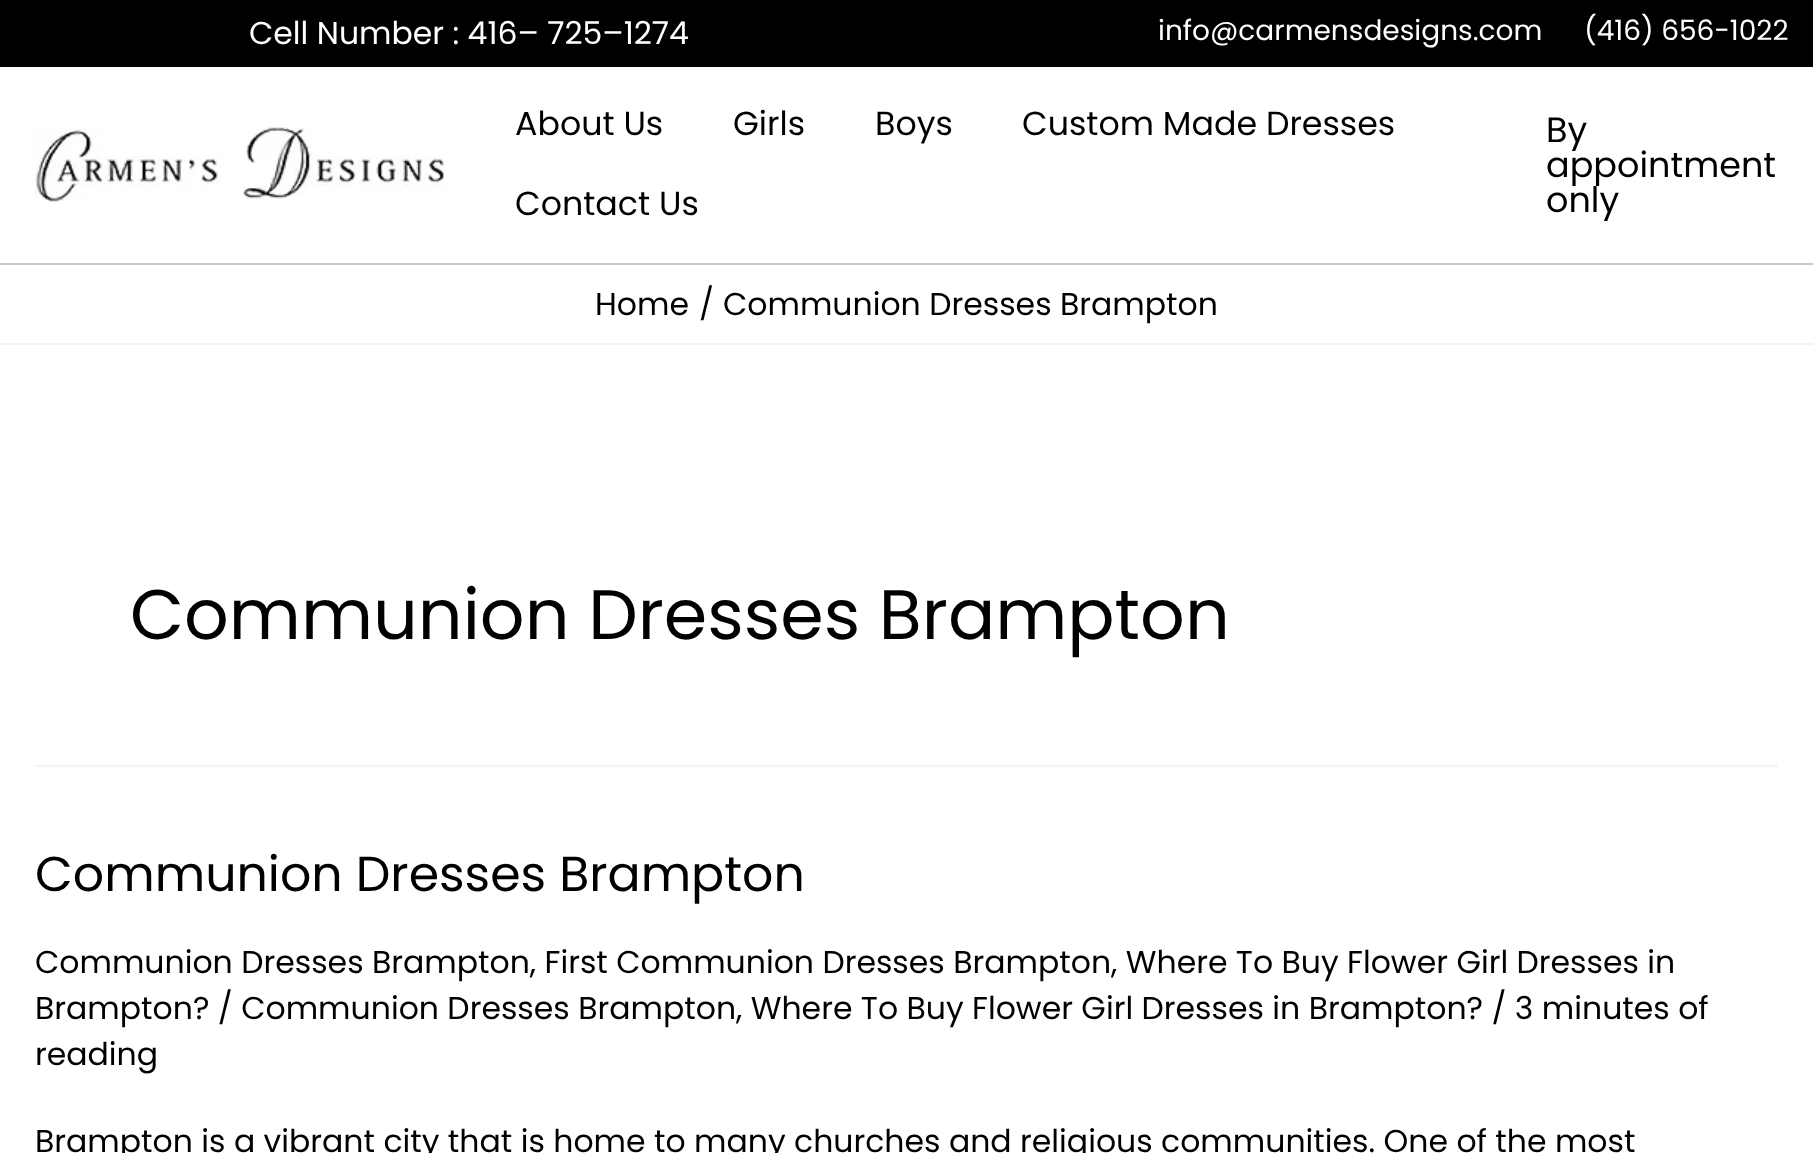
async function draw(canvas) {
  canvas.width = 1813
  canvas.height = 1153
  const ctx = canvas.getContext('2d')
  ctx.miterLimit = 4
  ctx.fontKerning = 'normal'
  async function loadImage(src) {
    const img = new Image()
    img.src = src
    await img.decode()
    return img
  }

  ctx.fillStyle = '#fff'
  ctx.fillRect(0, 0, 1813, 1153)
  ctx.fillStyle = '#000'
  ctx.fillRect(0, 0, 1813, 67)
  ctx.font = '31.5px Poppins'
  ctx.fillStyle = '#fff'
  ctx.fillText('Cell Number : 416– 725–1274', 249, 44)
  ctx.font = '28px Poppins'
  ctx.fillText('info@carmensdesigns.com', 1158, 40)
  ctx.fillText('(416) 656-1022', 1584, 40)
  ctx.fillStyle = '#cec8c8'
  ctx.fillRect(0, 263, 1813, 2)
  ctx.drawImage(await loadImage('image0.png'), 35, 127, 410, 75)
  ctx.font = '33.25px Poppins'
  ctx.fillStyle = '#000'
  ctx.fillText('About Us', 515, 135)
  ctx.fillText('Girls', 733, 135)
  ctx.fillText('Boys', 875, 135)
  ctx.fillText('Custom Made Dresses', 1022, 135)
  ctx.fillText('Contact Us', 515, 215)
  ctx.font = '35px Poppins'
  ctx.fillText('By', 1546, 142)
  ctx.fillText('appointment', 1546, 177)
  ctx.fillText('only', 1546, 212)
  ctx.fillStyle = '#f2f5f7'
  ctx.fillRect(0, 343, 1813, 2)
  ctx.font = '31.5px Poppins'
  ctx.fillStyle = '#000'
  ctx.fillText('Home', 595, 315)
  ctx.fillText('/', 699, 315)
  ctx.fillText('Communion Dresses Brampton', 723, 315)
  ctx.fillStyle = '#f2f5f7'
  ctx.fillRect(35, 765, 1743, 2)
  ctx.font = '70px Poppins'
  ctx.fillStyle = '#000'
  ctx.fillText('Communion Dresses Brampton', 130, 639)
  ctx.font = '49px Poppins'
  ctx.fillText('Communion Dresses Brampton', 35, 891)
  ctx.font = '31.5px Poppins'
  ctx.fillText('Communion Dresses Brampton, First Communion Dresses Brampton, Where To Buy Flower Girl Dresses in', 35, 973)
  ctx.fillText('Brampton? / Communion Dresses Brampton, Where To Buy Flower Girl Dresses in Brampton? / 3 minutes of', 35, 1019)
  ctx.fillText('reading', 35, 1065)
  ctx.fillText('Brampton is a vibrant city that is home to many churches and religious communities. One of the most', 35, 1152)
}

draw(document.querySelector('canvas'))
